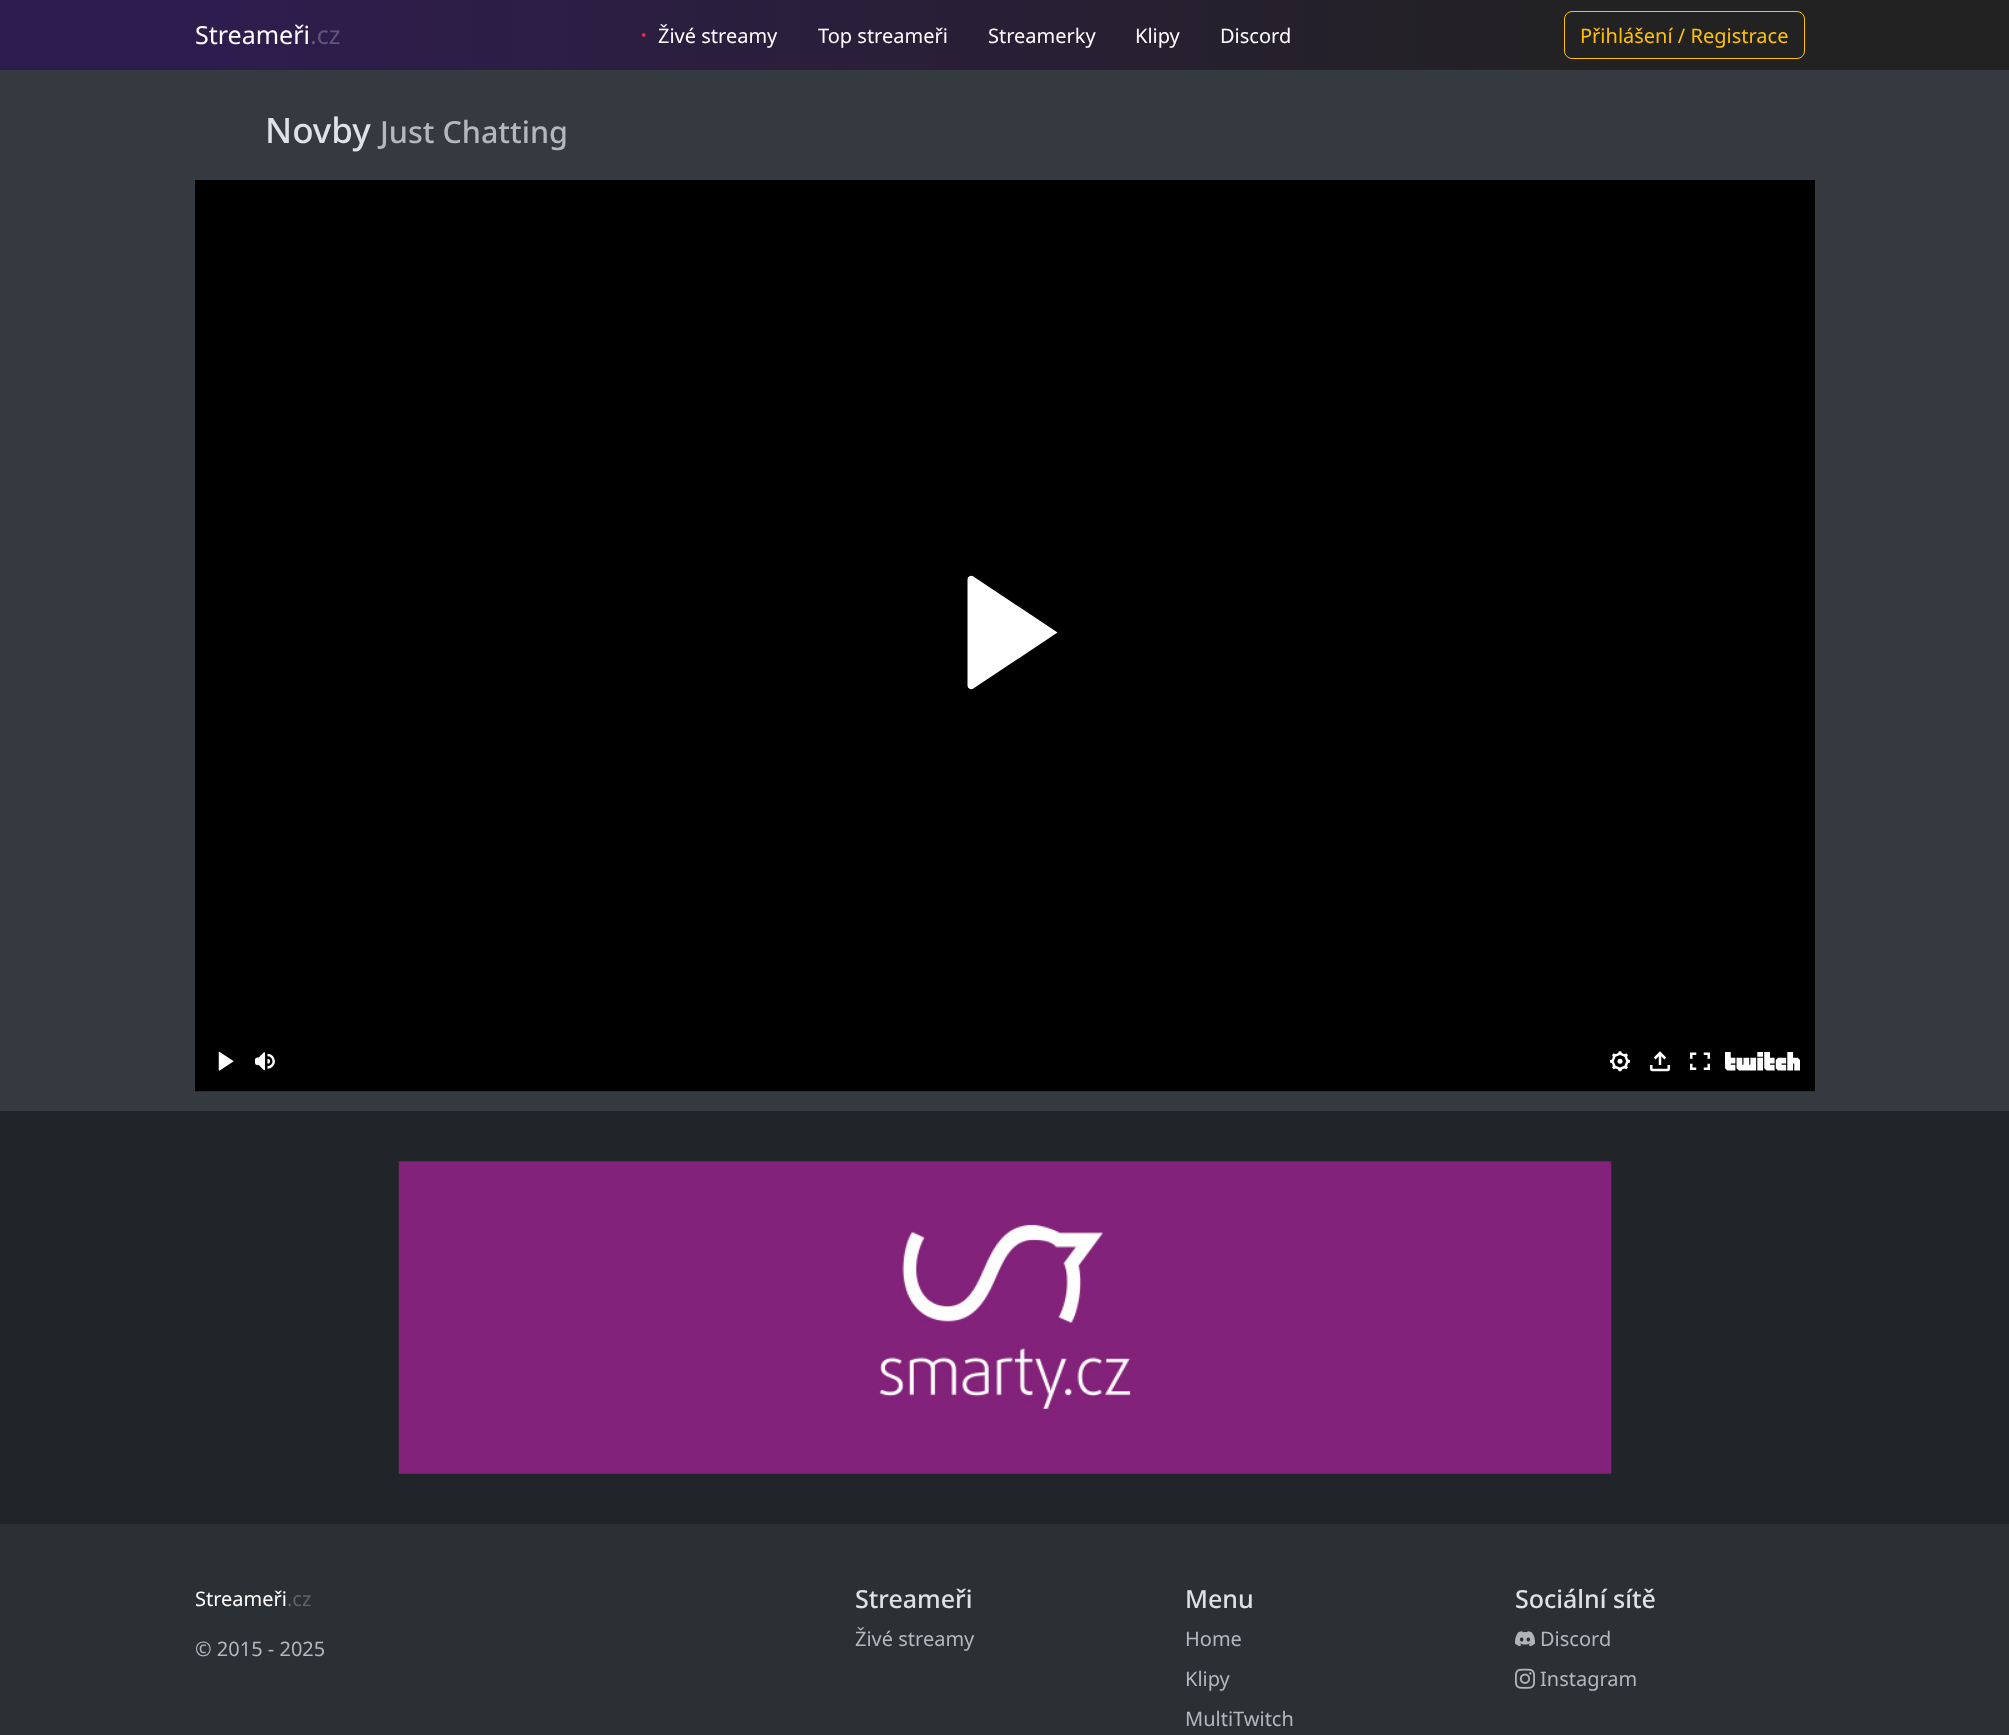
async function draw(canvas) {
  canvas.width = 2009
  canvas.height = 1735
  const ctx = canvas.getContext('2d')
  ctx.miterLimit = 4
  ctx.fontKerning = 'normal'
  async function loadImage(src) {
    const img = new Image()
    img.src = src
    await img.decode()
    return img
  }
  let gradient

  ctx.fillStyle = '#212529'
  ctx.fillRect(0, 0, 2009, 1735)
  gradient = ctx.createLinearGradient(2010, 35, 0, 35)
  gradient.addColorStop(0.2, '#222')
  gradient.addColorStop(0.9, '#2f1c4f')
  gradient.addColorStop(1, '#2f1c4f')
  ctx.fillStyle = gradient
  ctx.fillRect(0, 0, 2009, 70)
  ctx.font = '25px Noto Sans'
  ctx.fillStyle = '#fff'
  ctx.fillText('Streameři', 195, 44)
  ctx.fillStyle = '#625578'
  ctx.fillText('.cz', 310, 44)
  ctx.drawImage(await loadImage('image0.png'), 641, 33, 5, 4)
  ctx.font = '20px Noto Sans'
  ctx.fillStyle = '#fff'
  ctx.fillText('Živé streamy', 658, 43)
  ctx.fillText('Top streameři', 818, 43)
  ctx.fillText('Streamerky', 988, 43)
  ctx.fillText('Klipy', 1135, 43)
  ctx.fillText('Discord', 1220, 43)
  ctx.beginPath()
  ctx.roundRect(1564.5, 11.5, 240, 47, 7.5)
  ctx.strokeStyle = '#ffc107'
  ctx.stroke()
  ctx.fillStyle = '#ffc107'
  ctx.fillText('Přihlášení / Registrace', 1580, 43)
  ctx.fillStyle = '#343a40'
  ctx.fillRect(0, 70, 2009, 1041)
  ctx.font = '500 35px Noto Sans'
  ctx.fillStyle = '#dee2e6'
  ctx.fillText('Novby', 265, 143)
  ctx.font = '500 30.5px Noto Sans'
  ctx.fillStyle = '#b4b8bd'
  ctx.fillText('Just Chatting', 380, 143)
  ctx.drawImage(await loadImage('image1.png'), 195, 180, 1620, 912)
  ctx.drawImage(await loadImage('image2.png'), 398, 1161, 1214, 313)
  ctx.fillStyle = '#2b3035'
  ctx.fillRect(0, 1524, 2009, 211)
  ctx.font = '20px Noto Sans'
  ctx.fillStyle = '#fff'
  ctx.fillText('Streameři', 195, 1606)
  ctx.fillStyle = '#606468'
  ctx.fillText('.cz', 287, 1606)
  ctx.fillStyle = '#b4b8bd'
  ctx.fillText('© 2015 - 2025', 195, 1656)
  ctx.font = '500 25px Noto Sans'
  ctx.fillStyle = '#dee2e6'
  ctx.fillText('Streameři', 855, 1608)
  ctx.font = '20px Noto Sans'
  ctx.fillStyle = '#b4b8bd'
  ctx.fillText('Živé streamy', 855, 1646)
  ctx.font = '500 25px Noto Sans'
  ctx.fillStyle = '#dee2e6'
  ctx.fillText('Menu', 1185, 1608)
  ctx.font = '20px Noto Sans'
  ctx.fillStyle = '#b4b8bd'
  ctx.fillText('Home', 1185, 1646)
  ctx.fillText('Klipy', 1185, 1686)
  ctx.fillText('MultiTwitch', 1185, 1726)
  ctx.font = '500 25px Noto Sans'
  ctx.fillStyle = '#dee2e6'
  ctx.fillText('Sociální sítě', 1515, 1608)
  ctx.drawImage(await loadImage('image3.png'), 1515, 1631, 20, 16)
  ctx.font = '20px Noto Sans'
  ctx.fillStyle = '#b4b8bd'
  ctx.fillText('Discord', 1540, 1646)
  ctx.drawImage(await loadImage('image4.png'), 1515, 1668, 20, 21)
  ctx.fillText('Instagram', 1540, 1686)
}

draw(document.querySelector('canvas'))
